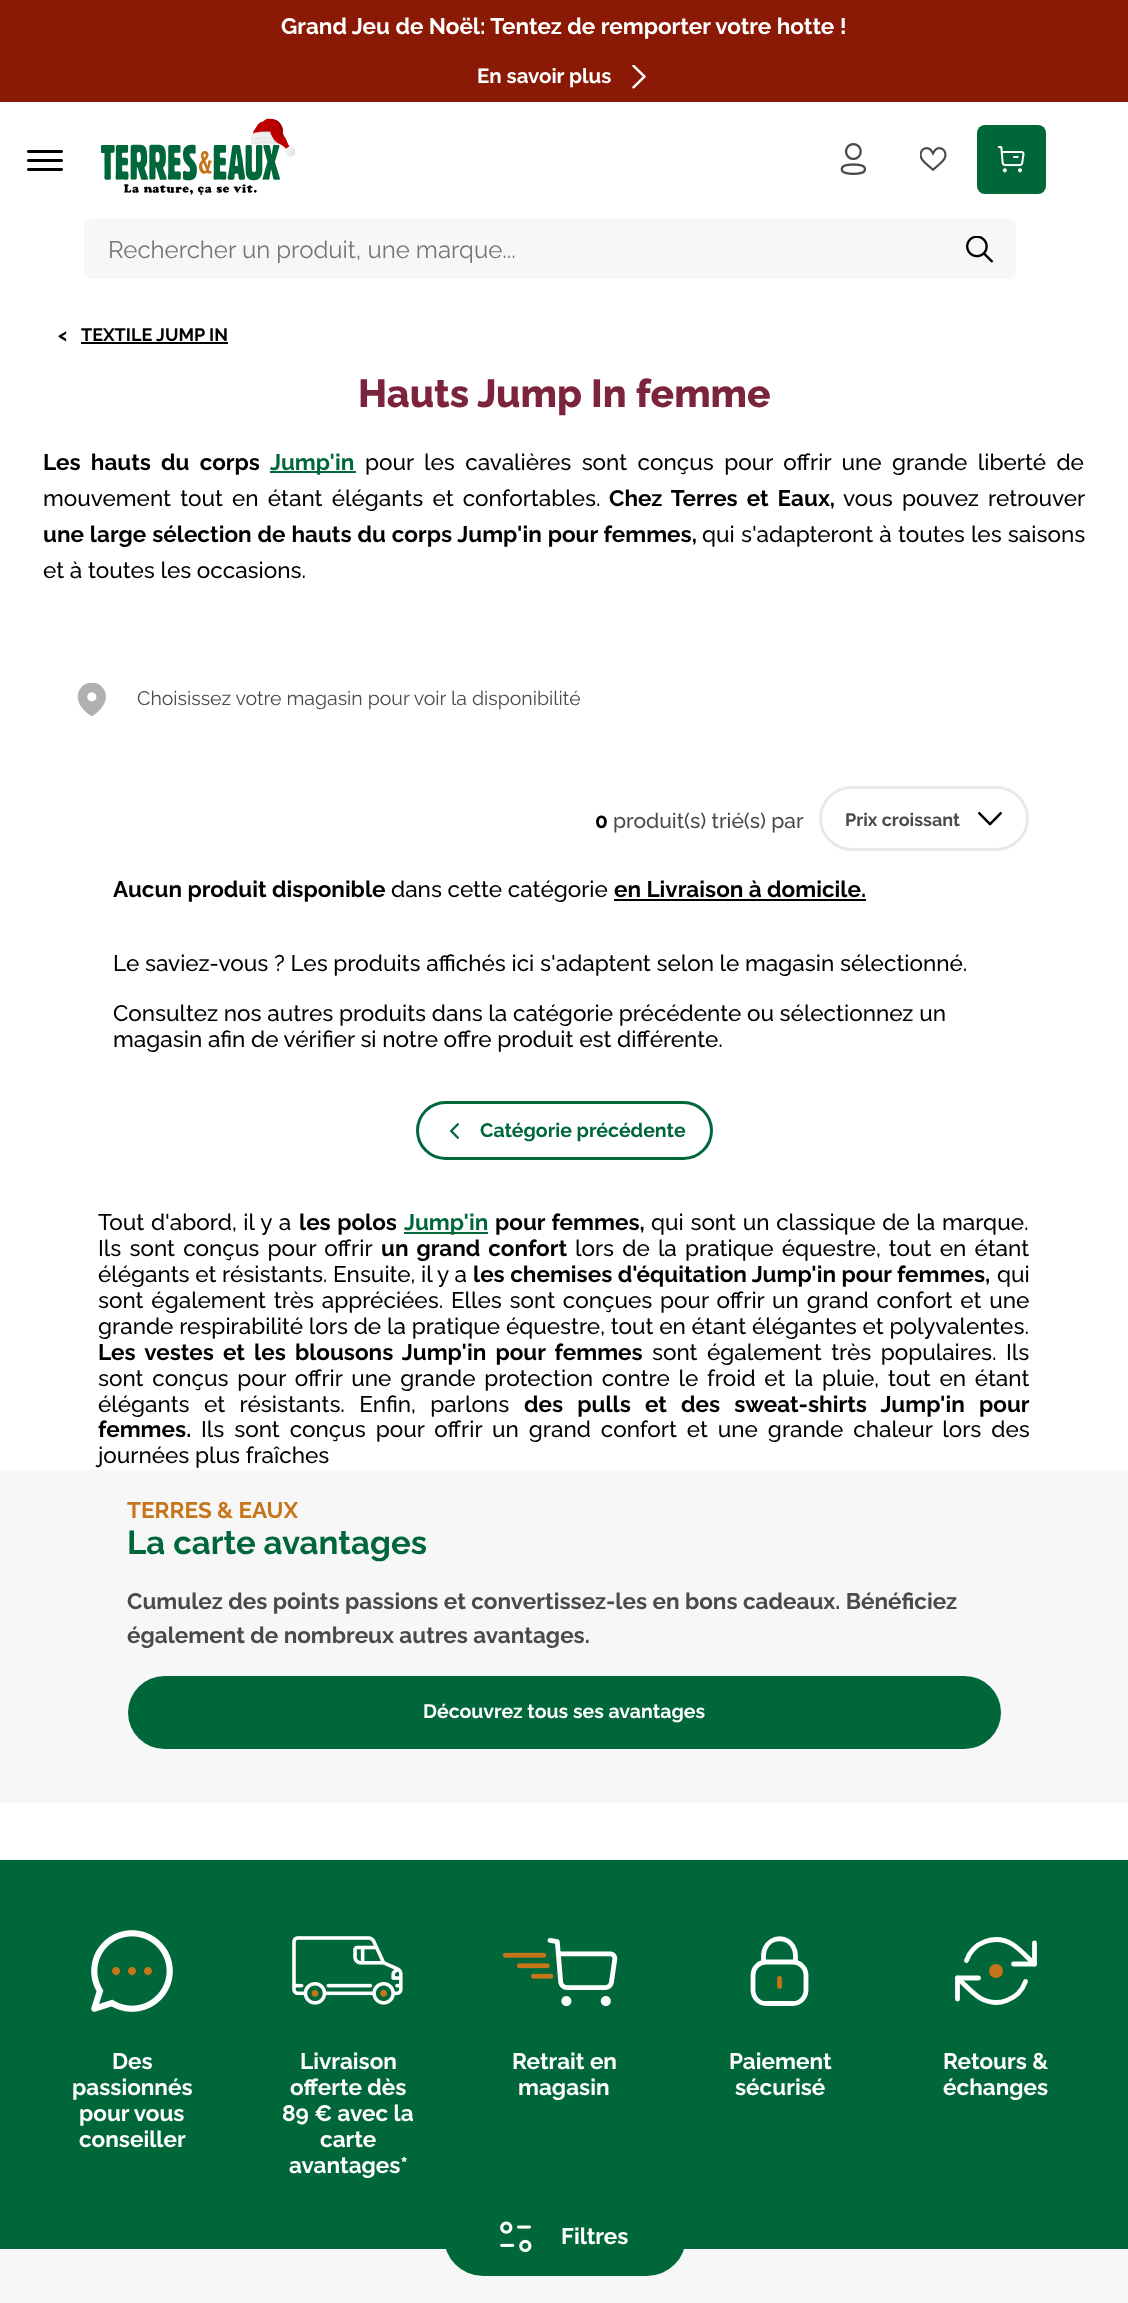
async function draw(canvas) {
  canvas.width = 1128
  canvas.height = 2303
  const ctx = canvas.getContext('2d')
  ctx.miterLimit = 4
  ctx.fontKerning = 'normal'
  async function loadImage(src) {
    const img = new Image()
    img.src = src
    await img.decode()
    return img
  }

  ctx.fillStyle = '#fff'
  ctx.fillRect(0, 0, 1128, 2303)
  ctx.fillStyle = '#8a1906'
  ctx.fillRect(0, 0, 1128, 102)
  ctx.font = 'bold 22.5px Raleway'
  ctx.fillStyle = '#fff'
  ctx.fillText('Grand Jeu de Noël: Tentez de remporter votre hotte !', 281, 34)
  ctx.font = 'bold 20.5px Raleway'
  ctx.fillText('En savoir plus', 477, 83)
  ctx.drawImage(await loadImage('image0.png'), 632, 65, 14, 24)
  ctx.drawImage(await loadImage('image1.png'), 101, 118, 195, 77)
  ctx.drawImage(await loadImage('image2.png'), 27, 150, 36, 21)
  ctx.drawImage(await loadImage('image3.png'), 840, 143, 27, 32)
  ctx.drawImage(await loadImage('image4.png'), 920, 147, 27, 25)
  ctx.fillStyle = '#00673a'
  ctx.beginPath()
  ctx.roundRect(977, 125, 69, 69, 8)
  ctx.fill()
  ctx.drawImage(await loadImage('image5.png'), 998, 146, 27, 27)
  ctx.fillStyle = '#f7f7f7'
  ctx.beginPath()
  ctx.roundRect(84, 219, 932, 60, 8)
  ctx.fill()
  ctx.font = '24px Raleway'
  ctx.fillStyle = '#757575'
  ctx.fillText('Rechercher un produit, une marque...', 108, 258)
  ctx.drawImage(await loadImage('image6.png'), 966, 236, 27, 27)
  ctx.font = 'bold 18px Raleway'
  ctx.fillStyle = '#000'
  ctx.fillText('<', 58, 341)
  ctx.fillText('TEXTILE JUMP IN', 81, 341)
  ctx.fillRect(81, 342, 147, 2)
  ctx.font = '800 39px Raleway'
  ctx.fillStyle = '#7b243c'
  ctx.fillText('Hauts Jump In femme', 358, 407)
  ctx.wordSpacing = '4.75px'
  ctx.font = 'bold 22.5px Raleway'
  ctx.fillStyle = '#000'
  ctx.fillText('Les hauts du corps', 43, 470)
  ctx.fillStyle = '#00673a'
  ctx.fillRect(270, 471, 86, 2)
  ctx.wordSpacing = '0px'
  ctx.fillText('Jump\'in', 270, 470)
  ctx.wordSpacing = '4.75px'
  ctx.font = '500 22.5px Raleway'
  ctx.fillStyle = '#000'
  ctx.fillText('pour les cavalières sont conçus pour offrir une grande liberté de', 365, 470)
  ctx.wordSpacing = '3.5px'
  ctx.fillText('mouvement tout en étant élégants et confortables.', 43, 506)
  ctx.font = 'bold 22.5px Raleway'
  ctx.fillText('Chez Terres et Eaux,', 609, 506)
  ctx.font = '500 22.5px Raleway'
  ctx.fillText('vous pouvez retrouver', 843, 506)
  ctx.wordSpacing = '0.5px'
  ctx.font = 'bold 22.5px Raleway'
  ctx.fillText('une large sélection de hauts du corps Jump\'in pour femmes,', 43, 542)
  ctx.font = '500 22.5px Raleway'
  ctx.fillText('qui s\'adapteront à toutes les saisons', 702, 542)
  ctx.wordSpacing = '0px'
  ctx.fillText('et à toutes les occasions.', 43, 578)
  ctx.drawImage(await loadImage('image7.png'), 77, 683, 29, 33)
  ctx.font = '19.5px Raleway'
  ctx.fillStyle = '#4a4a4a'
  ctx.fillText('Choisissez votre magasin pour voir la disponibilité', 137, 705)
  ctx.font = 'bold 21px Raleway'
  ctx.fillStyle = '#000'
  ctx.fillText('0', 595, 828)
  ctx.font = '500 21px Raleway'
  ctx.fillStyle = '#4a4a4a'
  ctx.fillText('produit(s) trié(s) par', 613, 828)
  ctx.beginPath()
  ctx.roundRect(820.5, 787.5, 207, 62, 31)
  ctx.strokeStyle = '#e9e9e9'
  ctx.lineWidth = 3
  ctx.stroke()
  ctx.font = 'bold 18px Raleway'
  ctx.fillText('Prix croissant', 845, 826)
  ctx.drawImage(await loadImage('image8.png'), 978, 811, 24, 15)
  ctx.fillStyle = '#00673a'
  ctx.fillRect(0, 1860, 1128, 389)
  ctx.fillStyle = '#f7f7f7'
  ctx.fillRect(0, 2249, 1128, 54)
  ctx.fillStyle = '#00673a'
  ctx.beginPath()
  ctx.roundRect(444, 2198, 242, 78, 39)
  ctx.fill()
  ctx.drawImage(await loadImage('image9.png'), 500, 2221, 32, 32)
  ctx.font = 'bold 22.5px Raleway'
  ctx.fillStyle = '#fff'
  ctx.fillText('Filtres', 561, 2244)
  ctx.fillStyle = '#000'
  ctx.fillText('Aucun produit disponible', 113, 897)
  ctx.font = '500 22.5px Raleway'
  ctx.fillText('dans cette catégorie', 391, 897)
  ctx.font = 'bold 22.5px Raleway'
  ctx.fillText('en Livraison à domicile.', 614, 897)
  ctx.fillRect(614, 899, 252, 2)
  ctx.font = '500 22.5px Raleway'
  ctx.fillText('Le saviez-vous ? Les produits affichés ici s\'adaptent selon le magasin sélectionné.', 113, 971)
  ctx.fillText('Consultez nos autres produits dans la catégorie précédente ou sélectionnez un', 113, 1021)
  ctx.fillText('magasin afin de vérifier si notre offre produit est différente.', 113, 1047)
  ctx.beginPath()
  ctx.roundRect(417.5, 1102.5, 294, 56, 28)
  ctx.strokeStyle = '#00673a'
  ctx.stroke()
  ctx.drawImage(await loadImage('image10.png'), 450, 1123, 9, 16)
  ctx.font = 'bold 19.5px Raleway'
  ctx.fillStyle = '#00673a'
  ctx.fillText('Catégorie précédente', 480, 1137)
  ctx.wordSpacing = '1px'
  ctx.font = '500 22.5px Raleway'
  ctx.fillStyle = '#000'
  ctx.fillText('Tout d\'abord, il y a', 98, 1230)
  ctx.font = 'bold 22.5px Raleway'
  ctx.fillText('les polos', 299, 1230)
  ctx.fillStyle = '#00673a'
  ctx.fillRect(404, 1232, 84, 2)
  ctx.wordSpacing = '0px'
  ctx.fillText('Jump\'in', 404, 1230)
  ctx.wordSpacing = '1px'
  ctx.fillStyle = '#000'
  ctx.fillText('pour femmes,', 495, 1230)
  ctx.font = '500 22.5px Raleway'
  ctx.fillText('qui sont un classique de la marque.', 651, 1230)
  ctx.wordSpacing = '2.5px'
  ctx.fillText('Ils sont conçus pour offrir', 98, 1256)
  ctx.font = 'bold 22.5px Raleway'
  ctx.fillText('un grand confort', 381, 1256)
  ctx.font = '500 22.5px Raleway'
  ctx.fillText('lors de la pratique équestre, tout en étant', 575, 1256)
  ctx.wordSpacing = '0px'
  ctx.fillText('élégants et résistants. Ensuite, il y a', 98, 1282)
  ctx.font = 'bold 22.5px Raleway'
  ctx.fillText('les chemises d\'équitation Jump\'in pour femmes,', 473, 1282)
  ctx.font = '500 22.5px Raleway'
  ctx.fillText('qui', 997, 1282)
  ctx.wordSpacing = '2.1px'
  ctx.fillText('sont également très appréciées. Elles sont conçues pour offrir un grand confort et une', 98, 1308)
  ctx.wordSpacing = '0.1px'
  ctx.fillText('grande respirabilité lors de la pratique équestre, tout en étant élégantes et polyvalentes.', 98, 1334)
  ctx.wordSpacing = '3.75px'
  ctx.font = 'bold 22.5px Raleway'
  ctx.fillText('Les vestes et les blousons Jump\'in pour femmes', 98, 1360)
  ctx.font = '500 22.5px Raleway'
  ctx.fillText('sont également très populaires. Ils', 652, 1360)
  ctx.wordSpacing = '3.1px'
  ctx.fillText('sont conçus pour offrir une grande protection contre le froid et la pluie, tout en étant', 98, 1386)
  ctx.wordSpacing = '8.75px'
  ctx.fillText('élégants et résistants. Enfin, parlons', 98, 1412)
  ctx.font = 'bold 22.5px Raleway'
  ctx.fillText('des pulls et des sweat-shirts Jump\'in pour', 524, 1412)
  ctx.wordSpacing = '0px'
  ctx.fillText('femmes.', 98, 1437)
  ctx.wordSpacing = '4.25px'
  ctx.font = '500 22.5px Raleway'
  ctx.fillText('Ils sont conçus pour offrir un grand confort et une grande chaleur lors des', 201, 1437)
  ctx.wordSpacing = '0px'
  ctx.fillText('journées plus fraîches', 98, 1463)
  ctx.fillStyle = '#f7f7f7'
  ctx.fillRect(0, 1470, 1128, 333)
  ctx.font = 'bold 22.5px Raleway'
  ctx.fillStyle = '#c6751b'
  ctx.fillText('TERRES & EAUX', 127, 1518)
  ctx.font = 'bold 33px Raleway'
  ctx.fillStyle = '#00673a'
  ctx.fillText('La carte avantages', 127, 1554)
  ctx.font = 'bold 22.5px Raleway'
  ctx.fillStyle = '#4a4a4a'
  ctx.fillText('Cumulez des points passions et convertissez-les en bons cadeaux. Bénéficiez', 127, 1609)
  ctx.fillText('également de nombreux autres avantages.', 127, 1643)
  ctx.fillStyle = '#00673a'
  ctx.beginPath()
  ctx.roundRect(128, 1676, 873, 73, 36.5)
  ctx.fill()
  ctx.font = 'bold 19.5px Raleway'
  ctx.fillStyle = '#fff'
  ctx.fillText('Découvrez tous ses avantages', 423, 1718)
  ctx.drawImage(await loadImage('image11.png'), 91, 1930, 82, 82)
  ctx.font = 'bold 22.5px Raleway'
  ctx.fillText('Des', 112, 2069)
  ctx.fillText('passionnés', 72, 2095)
  ctx.fillText('pour vous', 79, 2121)
  ctx.fillText('conseiller', 79, 2147)
  ctx.drawImage(await loadImage('image12.png'), 292, 1936, 111, 69)
  ctx.fillText('Livraison', 300, 2069)
  ctx.fillText('offerte dès', 290, 2095)
  ctx.fillText('89 € avec la', 282, 2121)
  ctx.fillText('carte', 320, 2147)
  ctx.fillText('avantages*', 289, 2173)
  ctx.drawImage(await loadImage('image13.png'), 503, 1938, 115, 69)
  ctx.fillText('Retrait en', 512, 2069)
  ctx.fillText('magasin', 518, 2095)
  ctx.beginPath()
  ctx.moveTo(795.5, 1962)
  ctx.bezierCurveTo(795.5, 1957.5, 796, 1952.5, 794, 1948.5)
  ctx.bezierCurveTo(789, 1935.5, 770.5, 1935.5, 765, 1948.5)
  ctx.bezierCurveTo(763, 1952.5, 763.5, 1957.5, 763.5, 1962)
  ctx.strokeStyle = '#fff'
  ctx.lineWidth = 4.8
  ctx.lineCap = 'round'
  ctx.lineJoin = 'round'
  ctx.stroke()
  ctx.beginPath()
  ctx.moveTo(793, 2003.5)
  ctx.lineTo(766, 2003.5)
  ctx.bezierCurveTo(759, 2003.5, 753, 1997.5, 753, 1990)
  ctx.lineTo(753, 1975)
  ctx.bezierCurveTo(753, 1968, 759, 1962, 766, 1962)
  ctx.lineTo(793, 1962)
  ctx.bezierCurveTo(800, 1962, 806, 1968, 806, 1975)
  ctx.lineTo(806, 1990)
  ctx.bezierCurveTo(806, 1997.5, 800, 2003.5, 793, 2003.5)
  ctx.closePath()
  ctx.stroke()
  ctx.beginPath()
  ctx.moveTo(779.5, 1978.5)
  ctx.lineTo(779.5, 1986.5)
  ctx.strokeStyle = '#c6751b'
  ctx.stroke()
  ctx.fillText('Paiement', 729, 2069)
  ctx.fillText('sécurisé', 735, 2095)
  ctx.beginPath()
  ctx.moveTo(1034.5, 1943)
  ctx.lineTo(1034.5, 1964)
  ctx.lineTo(1013.5, 1964)
  ctx.strokeStyle = '#fff'
  ctx.stroke()
  ctx.beginPath()
  ctx.moveTo(957.5, 1999)
  ctx.lineTo(957.5, 1978)
  ctx.lineTo(978.5, 1978)
  ctx.stroke()
  ctx.beginPath()
  ctx.moveTo(966.5, 1960.5)
  ctx.bezierCurveTo(973, 1942, 995, 1934, 1012, 1944)
  ctx.bezierCurveTo(1019.5, 1948.5, 1028, 1958, 1034.5, 1964)
  ctx.moveTo(957.5, 1978)
  ctx.bezierCurveTo(964, 1984, 972.5, 1993.5, 980, 1998)
  ctx.bezierCurveTo(997, 2008, 1019, 2000, 1025.5, 1981.5)
  ctx.stroke()
  ctx.fillStyle = '#c6751b'
  ctx.beginPath()
  ctx.arc(996, 1971, 7, 0, 2 * Math.PI)
  ctx.fill()
  ctx.fillStyle = '#fff'
  ctx.fillText('Retours &', 943, 2069)
  ctx.fillText('échanges', 943, 2095)
}

draw(document.querySelector('canvas'))
